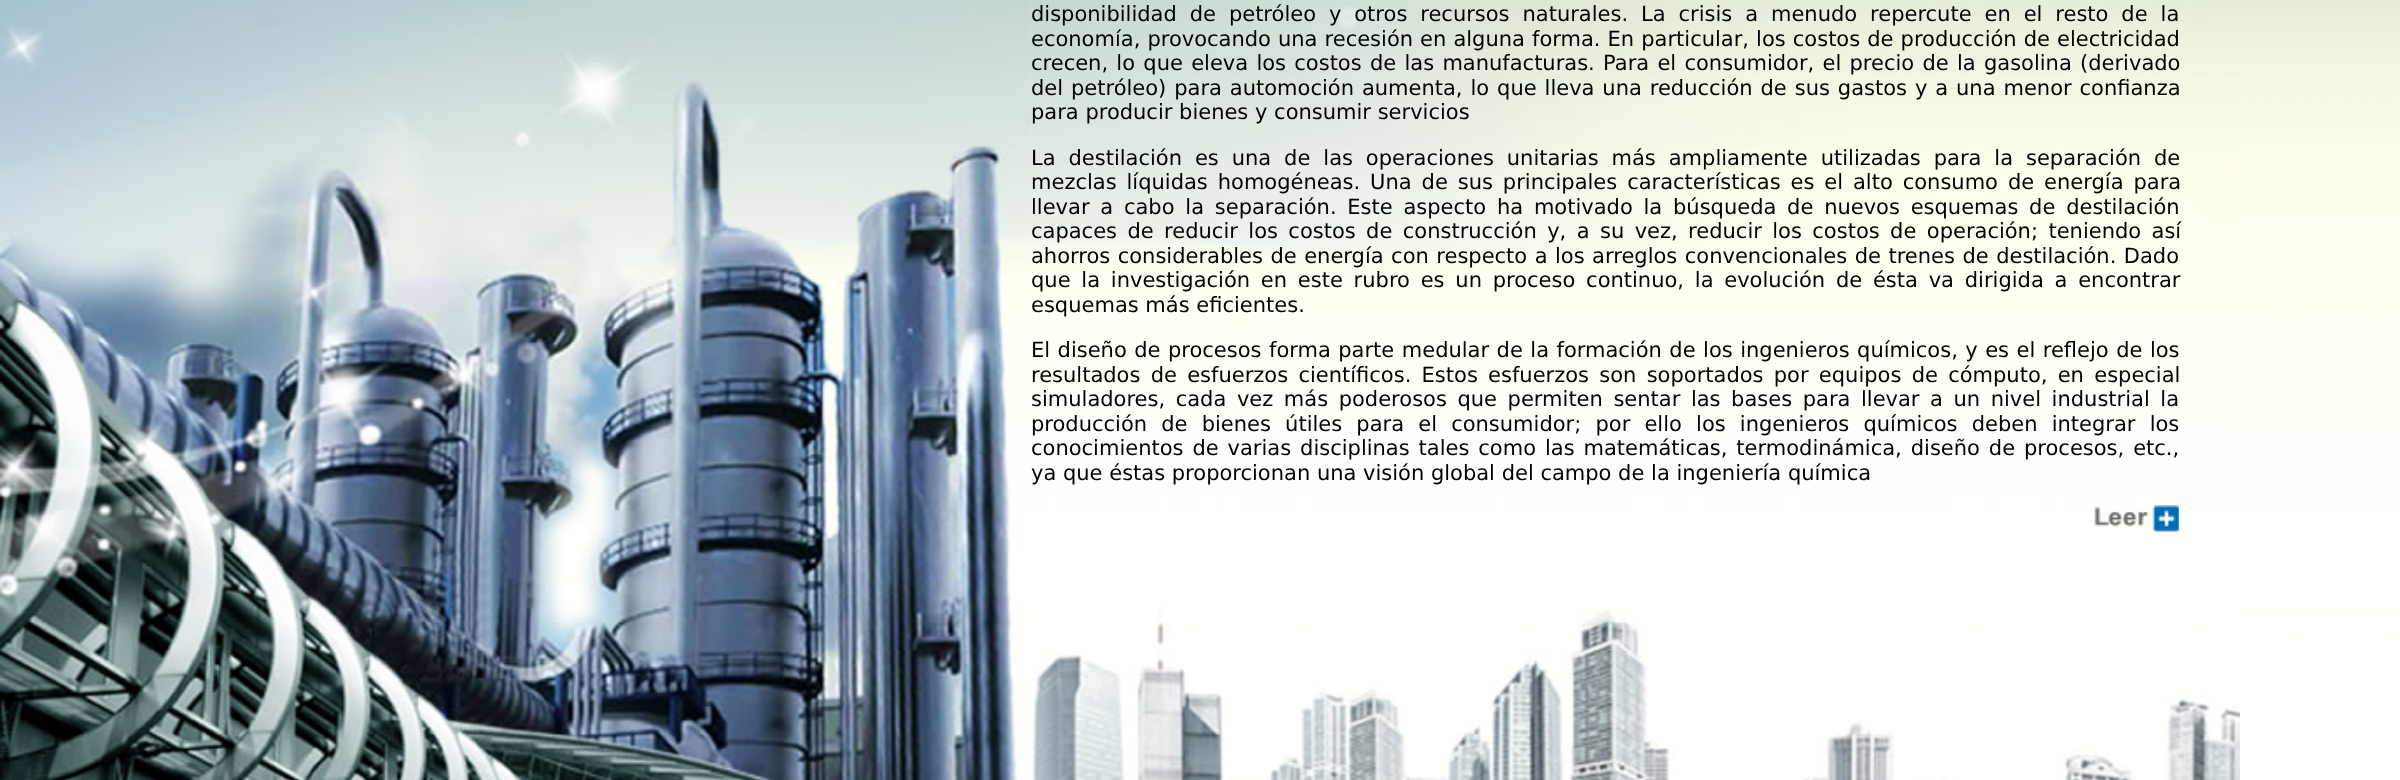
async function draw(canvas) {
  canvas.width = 2400
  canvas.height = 780
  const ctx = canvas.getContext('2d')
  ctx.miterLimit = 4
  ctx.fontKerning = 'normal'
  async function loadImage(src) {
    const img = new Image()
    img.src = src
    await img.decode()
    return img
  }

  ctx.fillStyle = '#fff'
  ctx.fillRect(0, 0, 2400, 780)
  ctx.drawImage(await loadImage('image0.png'), 1030, 0, 1370, 780)
  ctx.drawImage(await loadImage('image2.png'), 1030, 0, 1210, 780)
  ctx.drawImage(await loadImage('image1.png'), 0, 0, 1031, 780)
  ctx.wordSpacing = '6.25px'
  ctx.font = '21px DejaVu Sans'
  ctx.fillStyle = '#000'
  ctx.fillText('disponibilidad de petróleo y otros recursos naturales. La crisis a menudo repercute en el resto de la', 1031, 21)
  ctx.wordSpacing = '0.4px'
  ctx.fillText('economía, provocando una recesión en alguna forma. En particular, los costos de producción de electricidad', 1031, 46)
  ctx.wordSpacing = '1.6px'
  ctx.fillText('crecen, lo que eleva los costos de las manufacturas. Para el consumidor, el precio de la gasolina (derivado', 1031, 70)
  ctx.wordSpacing = '1.25px'
  ctx.fillText('del petróleo) para automoción aumenta, lo que lleva una reducción de sus gastos y a una menor confianza', 1031, 95)
  ctx.wordSpacing = '0px'
  ctx.fillText('para producir bienes y consumir servicios', 1031, 119)
  ctx.wordSpacing = '6.25px'
  ctx.fillText('La destilación es una de las operaciones unitarias más ampliamente utilizadas para la separación de', 1031, 165)
  ctx.wordSpacing = '3.25px'
  ctx.fillText('mezclas líquidas homogéneas. Una de sus principales características es el alto consumo de energía para', 1031, 189)
  ctx.wordSpacing = '4.1px'
  ctx.fillText('llevar a cabo la separación. Este aspecto ha motivado la búsqueda de nuevos esquemas de destilación', 1031, 214)
  ctx.wordSpacing = '3.75px'
  ctx.fillText('capaces de reducir los costos de construcción y, a su vez, reducir los costos de operación; teniendo así', 1031, 238)
  ctx.wordSpacing = '0.8px'
  ctx.fillText('ahorros considerables de energía con respecto a los arreglos convencionales de trenes de destilación. Dado', 1031, 263)
  ctx.wordSpacing = '4.1px'
  ctx.fillText('que la investigación en este rubro es un proceso continuo, la evolución de ésta va dirigida a encontrar', 1031, 287)
  ctx.wordSpacing = '0px'
  ctx.fillText('esquemas más eficientes.', 1031, 312)
  ctx.wordSpacing = '0.8px'
  ctx.fillText('El diseño de procesos forma parte medular de la formación de los ingenieros químicos, y es el reflejo de los', 1031, 357)
  ctx.wordSpacing = '3.6px'
  ctx.fillText('resultados de esfuerzos científicos. Estos esfuerzos son soportados por equipos de cómputo, en especial', 1031, 382)
  ctx.wordSpacing = '3.9px'
  ctx.fillText('simuladores, cada vez más poderosos que permiten sentar las bases para llevar a un nivel industrial la', 1031, 406)
  ctx.wordSpacing = '7.5px'
  ctx.fillText('producción de bienes útiles para el consumidor; por ello los ingenieros químicos deben integrar los', 1031, 431)
  ctx.wordSpacing = '2.25px'
  ctx.fillText('conocimientos de varias disciplinas tales como las matemáticas, termodinámica, diseño de procesos, etc.,', 1031, 455)
  ctx.wordSpacing = '0px'
  ctx.fillText('ya que éstas proporcionan una visión global del campo de la ingeniería química', 1031, 480)
  ctx.drawImage(await loadImage('image3.png'), 2094, 505, 85, 27)
}

draw(document.querySelector('canvas'))
